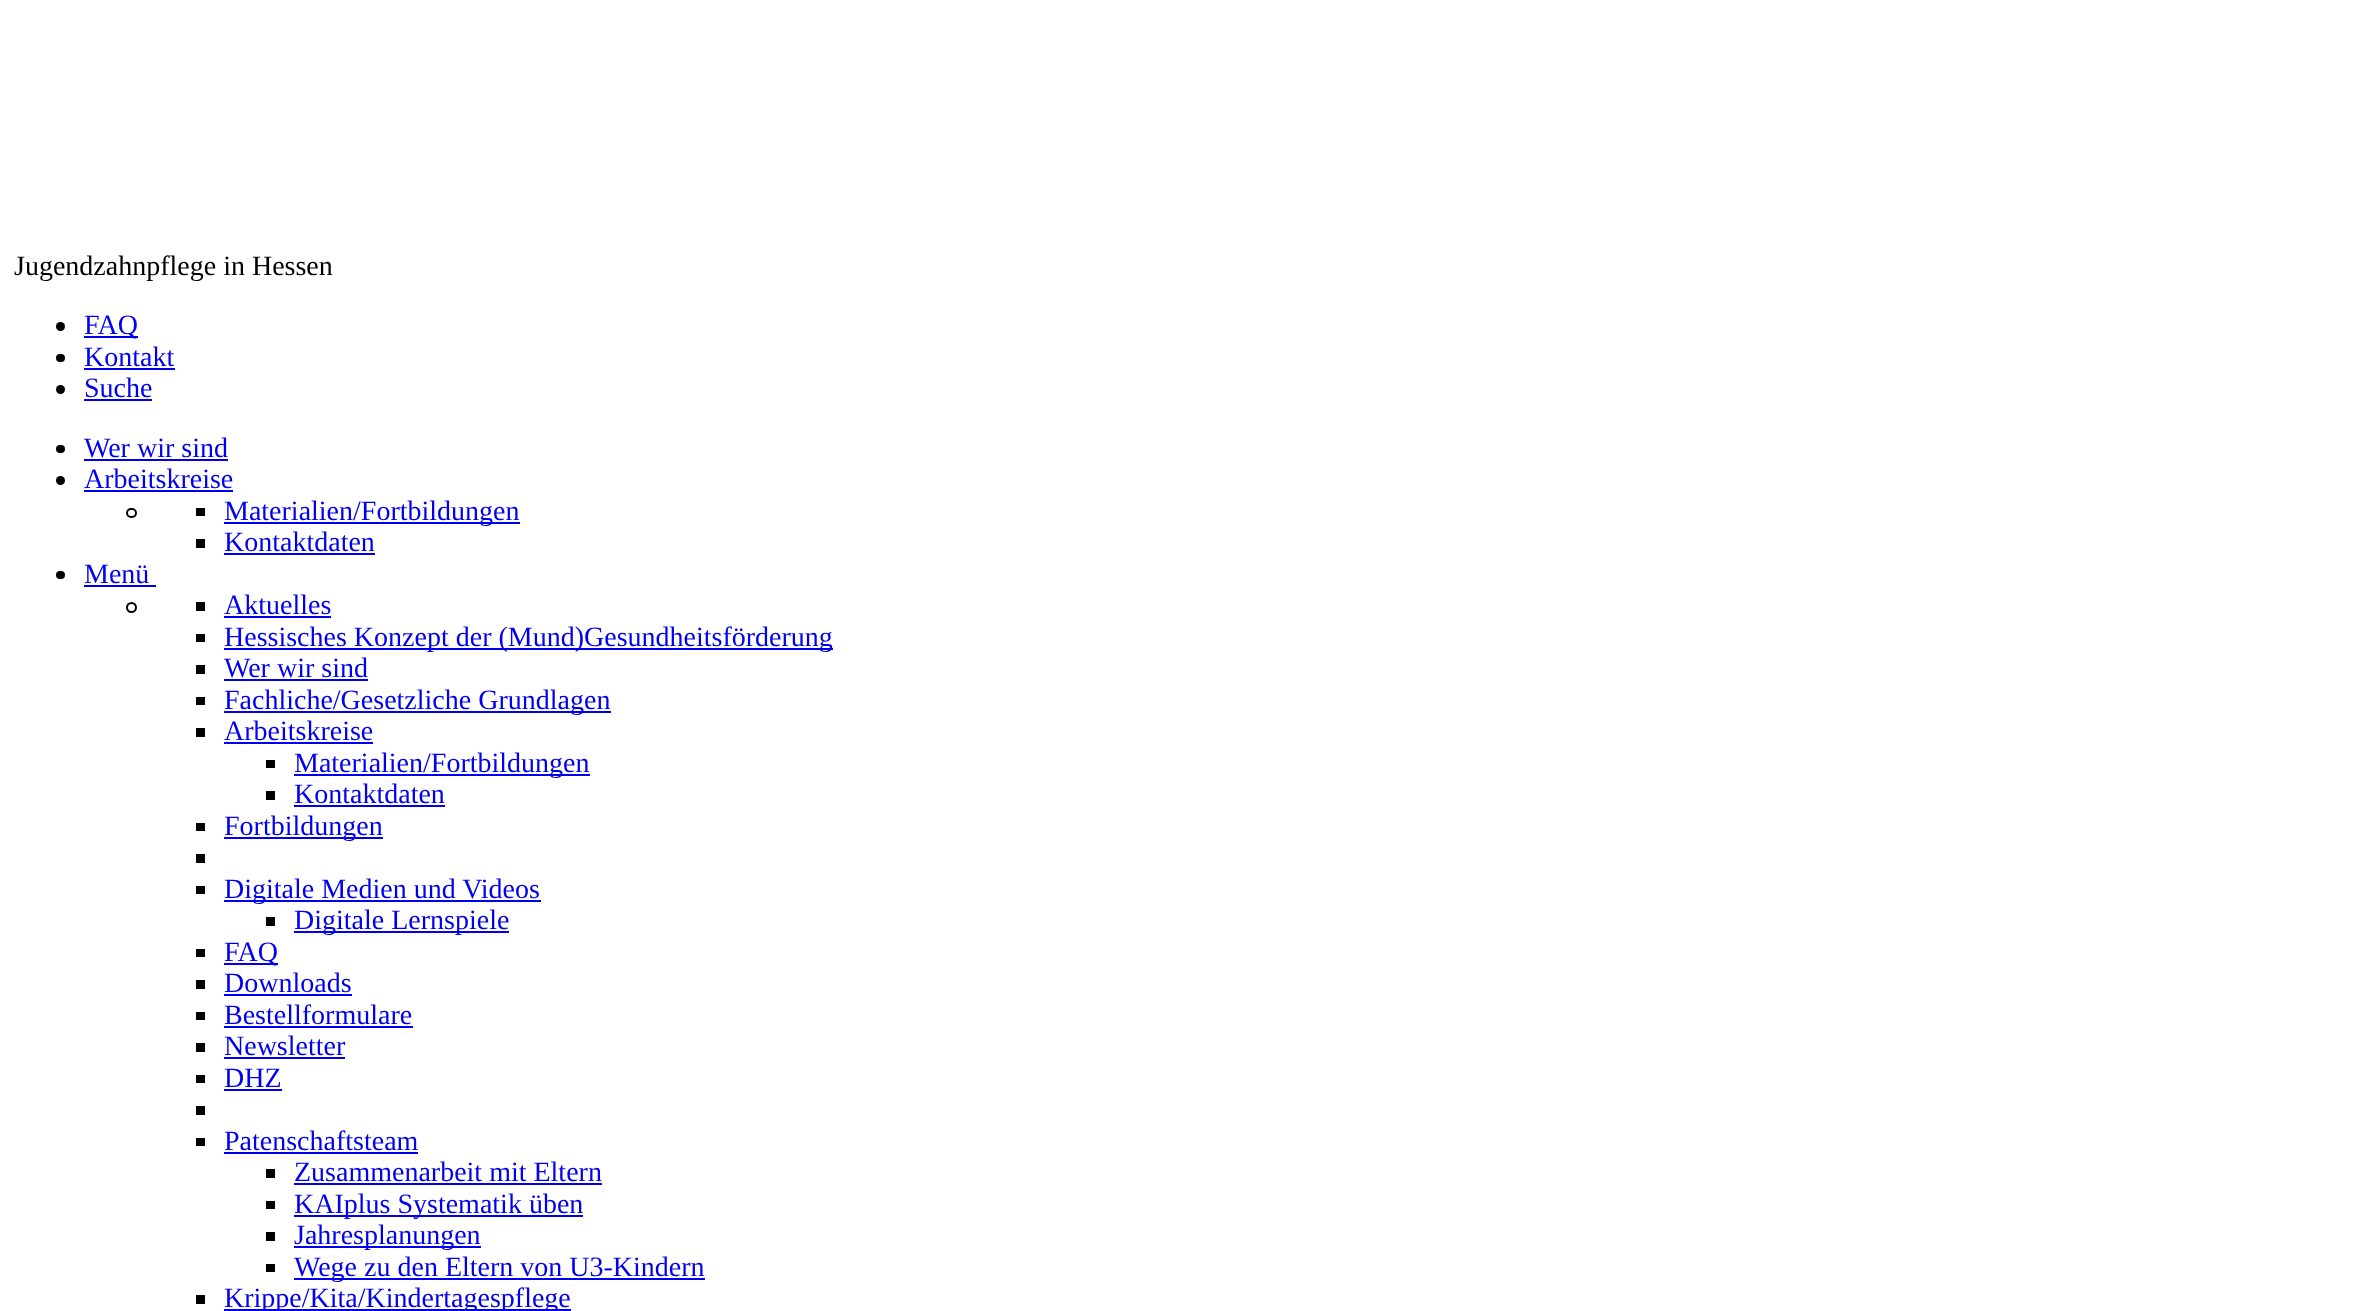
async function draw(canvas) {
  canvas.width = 2355
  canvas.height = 1311
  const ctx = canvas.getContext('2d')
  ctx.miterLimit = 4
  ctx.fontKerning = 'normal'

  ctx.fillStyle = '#fff'
  ctx.fillRect(0, 0, 2355, 1311)
  ctx.font = '28px Liberation Serif'
  ctx.fillStyle = '#000'
  ctx.fillText('Jugendzahnpflege in Hessen', 14, 275)
  ctx.beginPath()
  ctx.arc(60.5, 326.5, 4.5, 0, 2 * Math.PI)
  ctx.fill()
  ctx.fillStyle = '#00e'
  ctx.fillRect(84, 336, 54, 2)
  ctx.fillText('FAQ', 84, 334)
  ctx.fillStyle = '#000'
  ctx.beginPath()
  ctx.roundRect(56, 354, 9, 8, 4)
  ctx.fill()
  ctx.fillStyle = '#00e'
  ctx.fillText('Kontakt', 84, 366)
  ctx.fillRect(84, 368, 91, 2)
  ctx.fillStyle = '#000'
  ctx.beginPath()
  ctx.arc(60.5, 389.5, 4.5, 0, 2 * Math.PI)
  ctx.fill()
  ctx.fillStyle = '#00e'
  ctx.fillText('Suche', 84, 397)
  ctx.fillRect(84, 399, 68, 2)
  ctx.fillStyle = '#000'
  ctx.beginPath()
  ctx.roundRect(56, 445, 9, 8, 4)
  ctx.fill()
  ctx.fillStyle = '#00e'
  ctx.fillText('Wer wir sind', 84, 457)
  ctx.fillRect(84, 459, 144, 2)
  ctx.fillStyle = '#000'
  ctx.beginPath()
  ctx.arc(60.5, 480.5, 4.5, 0, 2 * Math.PI)
  ctx.fill()
  ctx.fillStyle = '#00e'
  ctx.fillText('Arbeitskreise', 84, 488)
  ctx.fillRect(84, 490, 149, 2)
  ctx.beginPath()
  ctx.roundRect(127, 509, 9, 8, 4)
  ctx.strokeStyle = '#000'
  ctx.lineWidth = 2
  ctx.stroke()
  ctx.fillStyle = '#000'
  ctx.fillRect(196, 508, 9, 8)
  ctx.fillStyle = '#00e'
  ctx.fillRect(224, 522, 296, 2)
  ctx.fillText('Materialien/Fortbildungen', 224, 520)
  ctx.fillStyle = '#000'
  ctx.fillRect(196, 539, 9, 9)
  ctx.fillStyle = '#00e'
  ctx.fillText('Kontaktdaten', 224, 551)
  ctx.fillRect(224, 553, 151, 2)
  ctx.fillStyle = '#000'
  ctx.beginPath()
  ctx.roundRect(56, 571, 9, 8, 4)
  ctx.fill()
  ctx.fillStyle = '#00e'
  ctx.fillText('Menü', 84, 583)
  ctx.fillRect(84, 585, 72, 2)
  ctx.beginPath()
  ctx.arc(131.5, 607.5, 4.5, 0, 2 * Math.PI)
  ctx.stroke()
  ctx.fillStyle = '#000'
  ctx.fillRect(196, 602, 9, 9)
  ctx.fillStyle = '#00e'
  ctx.fillText('Aktuelles', 224, 614)
  ctx.fillRect(224, 616, 107, 2)
  ctx.fillStyle = '#000'
  ctx.fillRect(196, 634, 9, 8)
  ctx.fillStyle = '#00e'
  ctx.fillRect(224, 648, 609, 2)
  ctx.fillText('Hessisches Konzept der (Mund)Gesundheitsförderung', 224, 646)
  ctx.fillStyle = '#000'
  ctx.fillRect(196, 665, 9, 9)
  ctx.fillStyle = '#00e'
  ctx.fillText('Wer wir sind', 224, 677)
  ctx.fillRect(224, 679, 144, 2)
  ctx.fillStyle = '#000'
  ctx.fillRect(196, 697, 9, 8)
  ctx.fillStyle = '#00e'
  ctx.fillRect(224, 711, 387, 2)
  ctx.fillText('Fachliche/Gesetzliche Grundlagen', 224, 709)
  ctx.fillStyle = '#000'
  ctx.fillRect(196, 728, 9, 9)
  ctx.fillStyle = '#00e'
  ctx.fillText('Arbeitskreise', 224, 740)
  ctx.fillRect(224, 742, 149, 2)
  ctx.fillStyle = '#000'
  ctx.fillRect(266, 760, 9, 8)
  ctx.fillStyle = '#00e'
  ctx.fillRect(294, 774, 296, 2)
  ctx.fillText('Materialien/Fortbildungen', 294, 772)
  ctx.fillStyle = '#000'
  ctx.fillRect(266, 791, 9, 9)
  ctx.fillStyle = '#00e'
  ctx.fillText('Kontaktdaten', 294, 803)
  ctx.fillRect(294, 805, 151, 2)
  ctx.fillStyle = '#000'
  ctx.fillRect(196, 823, 9, 8)
  ctx.fillStyle = '#00e'
  ctx.fillRect(224, 837, 159, 2)
  ctx.fillText('Fortbildungen', 224, 835)
  ctx.fillStyle = '#000'
  ctx.fillRect(196, 854, 9, 9)
  ctx.fillRect(196, 886, 9, 8)
  ctx.fillStyle = '#00e'
  ctx.fillRect(224, 900, 317, 2)
  ctx.fillText('Digitale Medien und Videos', 224, 898)
  ctx.fillStyle = '#000'
  ctx.fillRect(266, 917, 9, 9)
  ctx.fillStyle = '#00e'
  ctx.fillRect(294, 931, 215, 2)
  ctx.fillText('Digitale Lernspiele', 294, 929)
  ctx.fillStyle = '#000'
  ctx.fillRect(196, 949, 9, 8)
  ctx.fillStyle = '#00e'
  ctx.fillRect(224, 963, 54, 2)
  ctx.fillText('FAQ', 224, 961)
  ctx.fillStyle = '#000'
  ctx.fillRect(196, 980, 9, 9)
  ctx.fillStyle = '#00e'
  ctx.fillText('Downloads', 224, 992)
  ctx.fillRect(224, 994, 128, 2)
  ctx.fillStyle = '#000'
  ctx.fillRect(196, 1012, 9, 8)
  ctx.fillStyle = '#00e'
  ctx.fillText('Bestellformulare', 224, 1024)
  ctx.fillRect(224, 1026, 189, 2)
  ctx.fillStyle = '#000'
  ctx.fillRect(196, 1043, 9, 9)
  ctx.fillStyle = '#00e'
  ctx.fillText('Newsletter', 224, 1055)
  ctx.fillRect(224, 1057, 121, 2)
  ctx.fillStyle = '#000'
  ctx.fillRect(196, 1075, 9, 8)
  ctx.fillStyle = '#00e'
  ctx.fillText('DHZ', 224, 1087)
  ctx.fillRect(224, 1089, 58, 2)
  ctx.fillStyle = '#000'
  ctx.fillRect(196, 1106, 9, 9)
  ctx.fillRect(196, 1138, 9, 8)
  ctx.fillStyle = '#00e'
  ctx.fillText('Patenschaftsteam', 224, 1150)
  ctx.fillRect(224, 1152, 194, 2)
  ctx.fillStyle = '#000'
  ctx.fillRect(266, 1169, 9, 9)
  ctx.fillStyle = '#00e'
  ctx.fillText('Zusammenarbeit mit Eltern', 294, 1181)
  ctx.fillRect(294, 1183, 308, 2)
  ctx.fillStyle = '#000'
  ctx.fillRect(266, 1201, 9, 8)
  ctx.fillStyle = '#00e'
  ctx.fillRect(294, 1215, 289, 2)
  ctx.fillText('KAIplus Systematik üben', 294, 1213)
  ctx.fillStyle = '#000'
  ctx.fillRect(266, 1232, 9, 9)
  ctx.fillStyle = '#00e'
  ctx.fillRect(294, 1246, 187, 2)
  ctx.fillText('Jahresplanungen', 294, 1244)
  ctx.fillStyle = '#000'
  ctx.fillRect(266, 1264, 9, 8)
  ctx.fillStyle = '#00e'
  ctx.fillRect(294, 1278, 411, 2)
  ctx.fillText('Wege zu den Eltern von U3-Kindern', 294, 1276)
  ctx.fillStyle = '#000'
  ctx.fillRect(196, 1295, 9, 9)
  ctx.fillStyle = '#00e'
  ctx.fillRect(224, 1309, 347, 2)
  ctx.fillText('Krippe/Kita/Kindertagespflege', 224, 1307)
}

draw(document.querySelector('canvas'))
